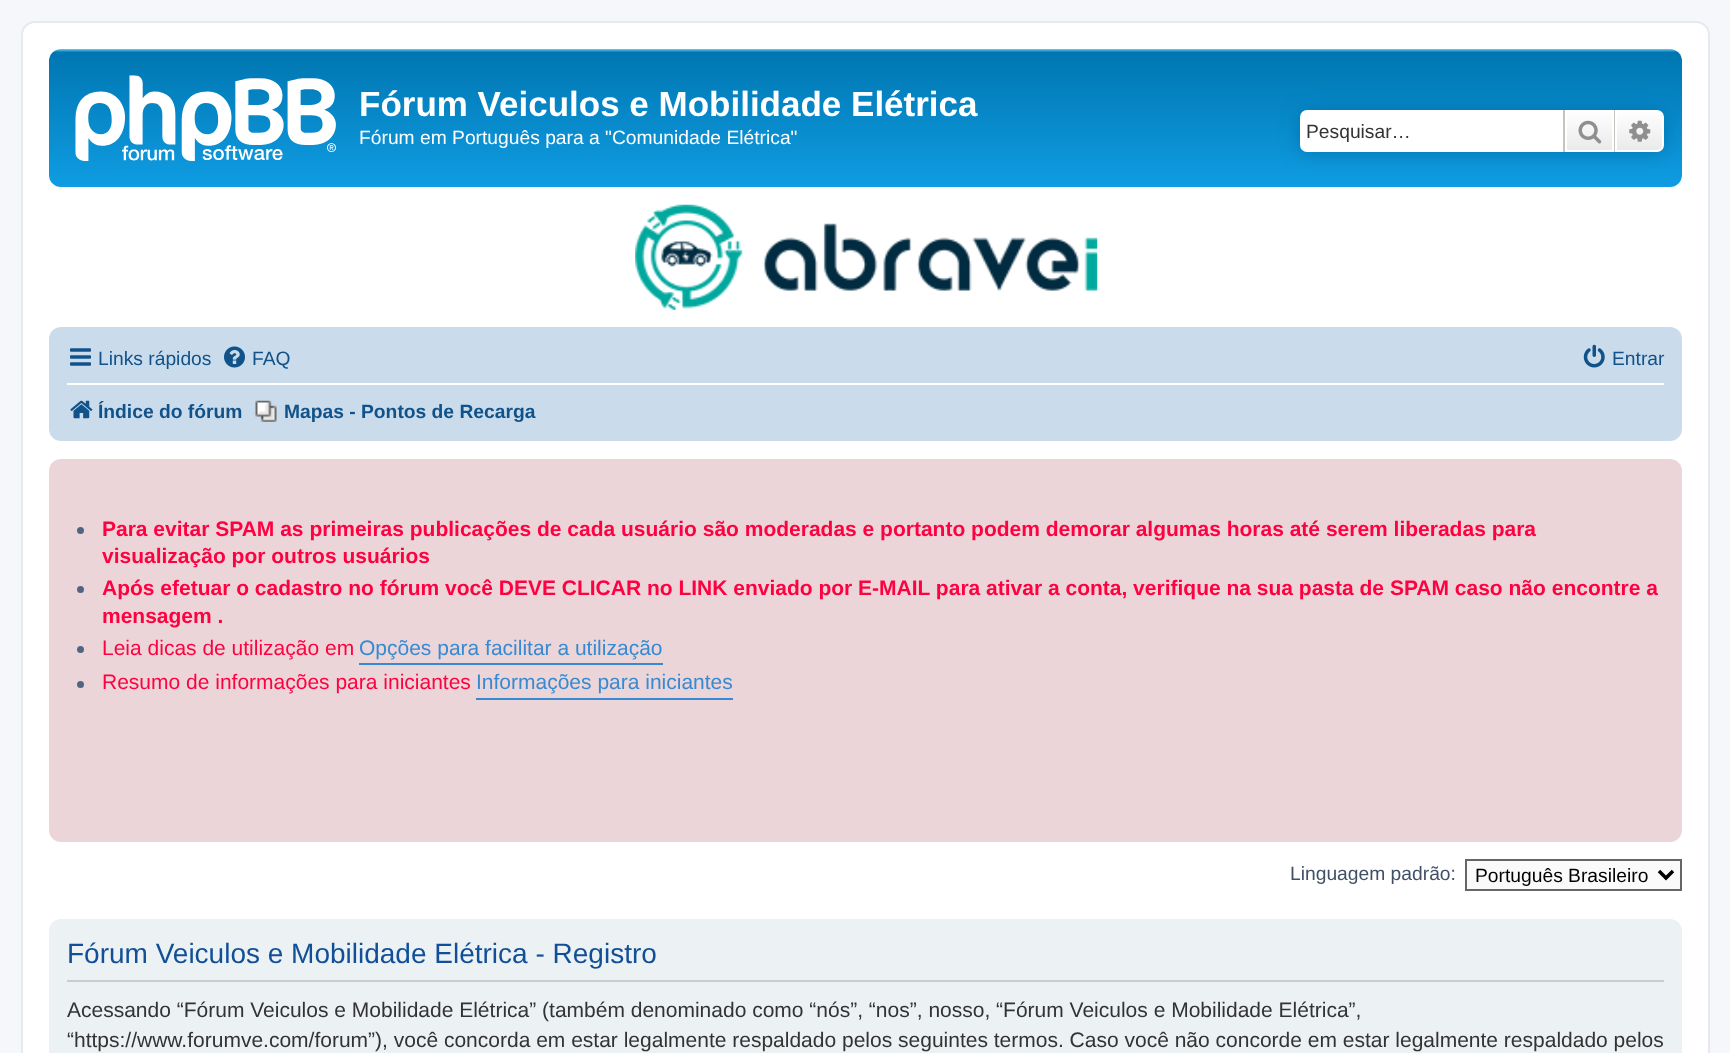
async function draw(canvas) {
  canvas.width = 1730
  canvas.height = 1053
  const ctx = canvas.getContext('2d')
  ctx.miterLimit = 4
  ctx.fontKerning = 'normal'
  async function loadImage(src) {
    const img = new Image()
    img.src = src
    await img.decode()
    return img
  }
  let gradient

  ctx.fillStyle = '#f5f7fa'
  ctx.fillRect(0, 0, 1730, 1053)
  ctx.fillStyle = '#fff'
  ctx.beginPath()
  ctx.roundRect(22, 22, 1687, 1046, 13)
  ctx.fill()
  ctx.strokeStyle = '#e6e9ed'
  ctx.lineWidth = 2
  ctx.stroke()
  gradient = ctx.createLinearGradient(865, 49, 865, 210)
  gradient.addColorStop(0, '#6aceff')
  gradient.addColorStop(0.02, '#0076b1')
  gradient.addColorStop(1, '#12a3eb')
  ctx.fillStyle = gradient
  ctx.beginPath()
  ctx.roundRect(49, 49, 1633, 138, 12)
  ctx.fill()
  ctx.drawImage(await loadImage('image0.png'), 75, 75, 261, 86)
  ctx.font = 'bold 35px Liberation Sans'
  ctx.fillStyle = '#fff'
  ctx.fillText('Fórum Veiculos e Mobilidade Elétrica', 359, 116)
  ctx.font = '19.25px Liberation Sans'
  ctx.fillText('Fórum em Português para a "Comunidade Elétrica"', 359, 144)
  ctx.fillStyle = '#0075b0'
  ctx.filter = 'blur(9px)'
  ctx.beginPath()
  ctx.roundRect(1300, 110, 364, 42, 7)
  ctx.fill()
  ctx.filter = 'none'
  ctx.fillStyle = '#fff'
  ctx.beginPath()
  ctx.roundRect(1300, 110, 263, 42, [7, 0, 0, 7])
  ctx.fill()
  ctx.fillStyle = '#333'
  ctx.fillText('Pesquisar…', 1306, 138)
  gradient = ctx.createLinearGradient(1589, 110, 1589, 152)
  gradient.addColorStop(0, '#fff')
  gradient.addColorStop(1, '#e9e9e9')
  ctx.fillStyle = gradient
  ctx.fillRect(1567, 112, 45, 38)
  ctx.strokeStyle = '#fff'
  ctx.strokeRect(1566, 111, 47, 40)
  ctx.fillStyle = '#c7c3bf'
  ctx.fillRect(1614, 110, 1, 42)
  ctx.fillRect(1563, 110, 2, 42)
  ctx.drawImage(await loadImage('image1.png'), 1578, 120, 24, 24)
  gradient = ctx.createLinearGradient(1640, 110, 1640, 152)
  gradient.addColorStop(0, '#fff')
  gradient.addColorStop(1, '#e9e9e9')
  ctx.fillStyle = gradient
  ctx.beginPath()
  ctx.roundRect(1616, 111, 47, 40, [0, 6, 6, 0])
  ctx.fill()
  ctx.stroke()
  ctx.drawImage(await loadImage('image2.png'), 1629, 120, 22, 22)
  ctx.drawImage(await loadImage('image3.png'), 635, 204, 463, 106)
  ctx.fillStyle = '#cadceb'
  ctx.beginPath()
  ctx.roundRect(49, 327, 1633, 114, 12)
  ctx.fill()
  ctx.drawImage(await loadImage('image4.png'), 70, 348, 21, 18)
  ctx.fillStyle = '#105289'
  ctx.fillText('Links rápidos', 98, 365)
  ctx.drawImage(await loadImage('image5.png'), 224, 346, 21, 22)
  ctx.fillText('FAQ', 252, 365)
  ctx.drawImage(await loadImage('image6.png'), 1583, 344, 22, 24)
  ctx.fillText('Entrar', 1612, 365)
  ctx.fillStyle = '#fff'
  ctx.fillRect(67, 383, 1597, 2)
  ctx.drawImage(await loadImage('image7.png'), 70, 400, 23, 19)
  ctx.font = 'bold 19.25px Liberation Sans'
  ctx.fillStyle = '#105289'
  ctx.fillText('Índice do fórum', 98, 418)
  ctx.drawImage(await loadImage('image8.png'), 255, 400, 22, 22)
  ctx.fillText('Mapas - Pontos de Recarga', 284, 418)
  ctx.fillStyle = '#ecd5d8'
  ctx.beginPath()
  ctx.roundRect(49, 459, 1633, 383, 12)
  ctx.fill()
  ctx.fillStyle = '#536482'
  ctx.beginPath()
  ctx.arc(80.5, 530.5, 3.5, 0, 2 * Math.PI)
  ctx.fill()
  ctx.font = 'bold 21px Liberation Sans'
  ctx.fillStyle = '#ff0040'
  ctx.fillText('Para evitar SPAM as primeiras publicações de cada usuário são moderadas e portanto podem demorar algumas horas até serem liberadas para', 102, 536)
  ctx.fillText('visualização por outros usuários', 102, 563)
  ctx.fillStyle = '#536482'
  ctx.beginPath()
  ctx.arc(80.5, 589.5, 3.5, 0, 2 * Math.PI)
  ctx.fill()
  ctx.fillStyle = '#ff0040'
  ctx.fillText('Após efetuar o cadastro no fórum você DEVE CLICAR no LINK enviado por E-MAIL para ativar a conta, verifique na sua pasta de SPAM caso não encontre a', 102, 595)
  ctx.fillText('mensagem .', 102, 623)
  ctx.fillStyle = '#536482'
  ctx.beginPath()
  ctx.arc(80.5, 649.5, 3.5, 0, 2 * Math.PI)
  ctx.fill()
  ctx.font = '21px Liberation Sans'
  ctx.fillStyle = '#ff0040'
  ctx.fillText('Leia dicas de utilização em', 102, 655)
  ctx.fillStyle = '#368ad2'
  ctx.fillRect(359, 663, 304, 2)
  ctx.fillText('Opções para facilitar a utilização', 359, 655)
  ctx.fillStyle = '#536482'
  ctx.beginPath()
  ctx.arc(80.5, 684.5, 3.5, 0, 2 * Math.PI)
  ctx.fill()
  ctx.fillStyle = '#ff0040'
  ctx.fillText('Resumo de informações para iniciantes', 102, 689)
  ctx.fillStyle = '#368ad2'
  ctx.fillRect(476, 698, 257, 2)
  ctx.fillText('Informações para iniciantes', 476, 689)
  ctx.font = '19.25px Liberation Sans'
  ctx.fillStyle = '#425067'
  ctx.fillText('Linguagem padrão:', 1290, 880)
  ctx.fillStyle = '#fafafa'
  ctx.beginPath()
  ctx.rect(1466, 860, 215, 30)
  ctx.fill()
  ctx.strokeStyle = '#666'
  ctx.stroke()
  ctx.beginPath()
  ctx.moveTo(1659, 871)
  ctx.lineTo(1666, 878)
  ctx.lineTo(1673, 871)
  ctx.strokeStyle = '#000'
  ctx.lineWidth = 3.5
  ctx.stroke()
  ctx.fillStyle = '#000'
  ctx.fillText('Português Brasileiro', 1475, 882)
  ctx.fillStyle = '#ecf1f3'
  ctx.beginPath()
  ctx.roundRect(49, 919, 1633, 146, 12)
  ctx.fill()
  ctx.fillStyle = '#ccc'
  ctx.fillRect(67, 980, 1597, 2)
  ctx.font = '28px Liberation Sans'
  ctx.fillStyle = '#115098'
  ctx.fillText('Fórum Veiculos e Mobilidade Elétrica - Registro', 67, 963)
  ctx.font = '21px Liberation Sans'
  ctx.fillStyle = '#333'
  ctx.fillText('Acessando “Fórum Veiculos e Mobilidade Elétrica” (também denominado como “nós”, “nos”, nosso, “Fórum Veiculos e Mobilidade Elétrica”,', 67, 1017)
  ctx.fillText('“https://www.forumve.com/forum”), você concorda em estar legalmente respaldado pelos seguintes termos. Caso você não concorde em estar legalmente respaldado pelos', 67, 1047)
}

draw(document.querySelector('canvas'))
